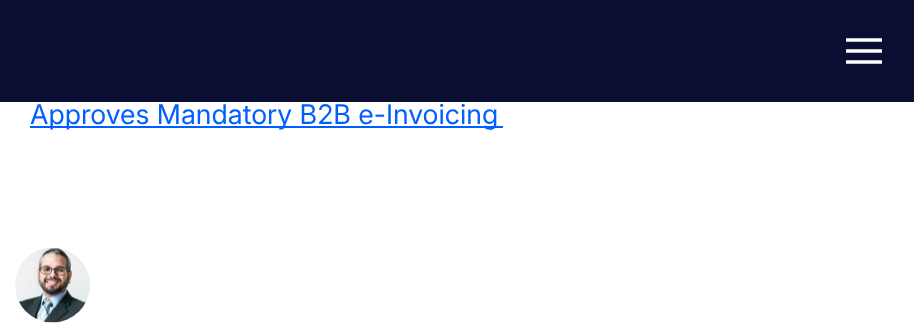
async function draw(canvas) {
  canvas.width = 914
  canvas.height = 336
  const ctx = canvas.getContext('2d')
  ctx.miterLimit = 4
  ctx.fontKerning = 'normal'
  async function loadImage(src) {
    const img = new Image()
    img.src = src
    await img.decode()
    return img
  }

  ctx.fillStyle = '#fff'
  ctx.fillRect(0, 0, 914, 336)
  ctx.fillStyle = '#0a0e33'
  ctx.fillRect(0, 0, 914, 102)
  ctx.beginPath()
  ctx.moveTo(846, 62)
  ctx.lineTo(882, 62)
  ctx.moveTo(846, 51)
  ctx.lineTo(882, 51)
  ctx.moveTo(846, 40)
  ctx.lineTo(882, 40)
  ctx.strokeStyle = '#fff'
  ctx.lineWidth = 3.4
  ctx.stroke()
  ctx.fillStyle = '#015fff'
  ctx.fillRect(30, 126, 473, 2)
  ctx.font = '27px Inter'
  ctx.fillText('Approves Mandatory B2B e-Invoicing', 30, 124)
  ctx.drawImage(await loadImage('image0.png'), 15, 247, 75, 76)
}

draw(document.querySelector('canvas'))
